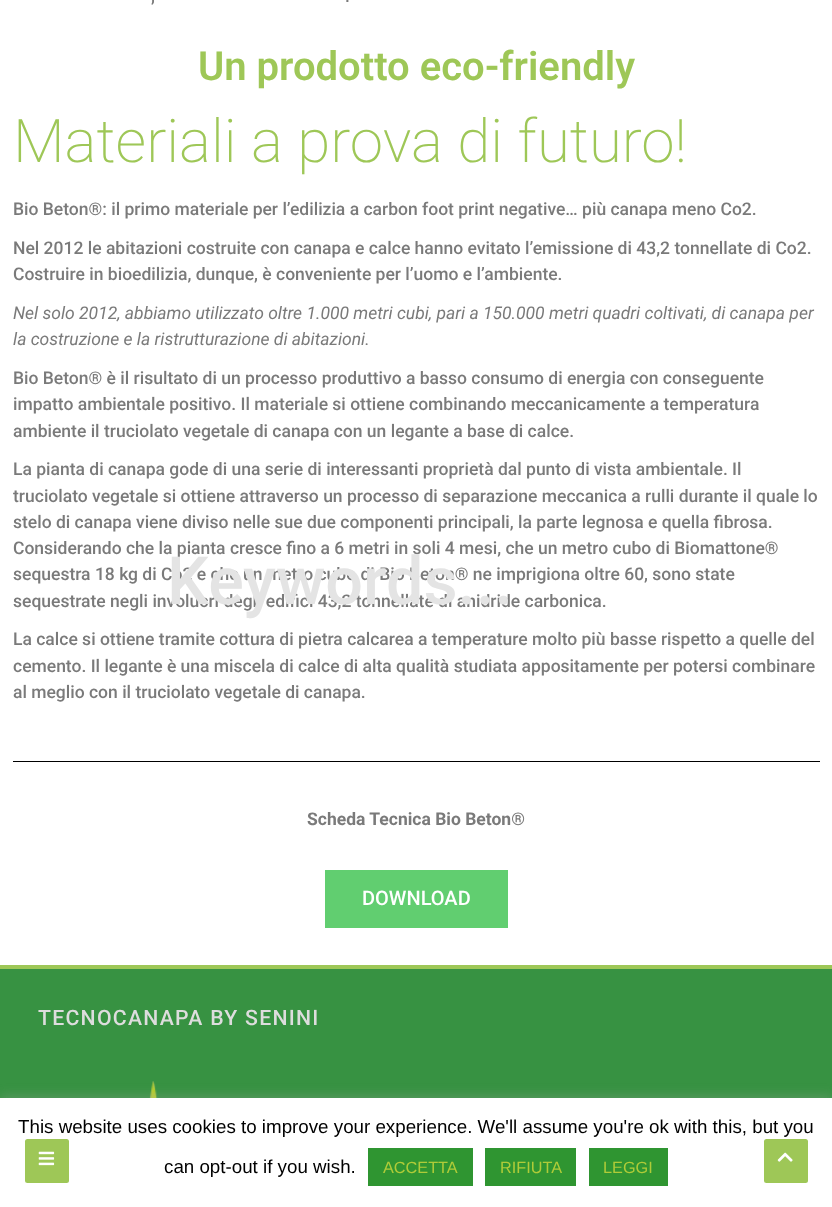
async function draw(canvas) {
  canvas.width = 832
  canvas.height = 1207
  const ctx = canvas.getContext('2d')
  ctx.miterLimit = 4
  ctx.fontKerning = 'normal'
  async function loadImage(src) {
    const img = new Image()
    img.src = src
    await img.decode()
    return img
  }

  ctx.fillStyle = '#fff'
  ctx.fillRect(0, 0, 832, 1207)
  ctx.font = '500 17.5px Roboto'
  ctx.fillStyle = '#7a7a7a'
  ctx.fillText(',', 151, 2)
  ctx.fillText('.', 345, 2)
  ctx.font = '600 40px Roboto'
  ctx.fillStyle = '#9ec757'
  ctx.fillText('Un prodotto eco-friendly', 198, 80)
  ctx.font = '200 60px Roboto'
  ctx.fillText('Materiali a prova di futuro!', 13, 162)
  ctx.font = '500 17.5px Roboto'
  ctx.fillStyle = '#7a7a7a'
  ctx.fillText('Bio Beton®: il primo materiale per l’edilizia a carbon foot print negative… più canapa meno Co2.', 13, 215)
  ctx.fillText('Nel 2012 le abitazioni costruite con canapa e calce hanno evitato l’emissione di 43,2 tonnellate di Co2.', 13, 254)
  ctx.fillText('Costruire in bioedilizia, dunque, è conveniente per l’uomo e l’ambiente.', 13, 280)
  ctx.font = 'italic 17.5px Roboto'
  ctx.fillText('Nel solo 2012, abbiamo utilizzato oltre 1.000 metri cubi, pari a 150.000 metri quadri coltivati, di canapa per', 13, 319)
  ctx.fillText('la costruzione e la ristrutturazione di abitazioni.', 13, 345)
  ctx.font = '500 17.5px Roboto'
  ctx.fillText('Bio Beton® è il risultato di un processo produttivo a basso consumo di energia con conseguente', 13, 384)
  ctx.fillText('impatto ambientale positivo. Il materiale si ottiene combinando meccanicamente a temperatura', 13, 410)
  ctx.fillText('ambiente il truciolato vegetale di canapa con un legante a base di calce.', 13, 437)
  ctx.fillText('La pianta di canapa gode di una serie di interessanti proprietà dal punto di vista ambientale. Il', 13, 475)
  ctx.fillText('truciolato vegetale si ottiene attraverso un processo di separazione meccanica a rulli durante il quale lo', 13, 502)
  ctx.fillText('stelo di canapa viene diviso nelle sue due componenti principali, la parte legnosa e quella fibrosa.', 13, 528)
  ctx.fillText('Considerando che la pianta cresce fino a 6 metri in soli 4 mesi, che un metro cubo di Biomattone®', 13, 554)
  ctx.fillText('sequestra 18 kg di Co2 e che un metro cubo di Bio Beton® ne imprigiona oltre 60, sono state', 13, 580)
  ctx.fillText('sequestrate negli involucri degli edifici 43,2 tonnellate di anidride carbonica.', 13, 607)
  ctx.fillText('La calce si ottiene tramite cottura di pietra calcarea a temperature molto più basse rispetto a quelle del', 13, 645)
  ctx.fillText('cemento. Il legante è una miscela di calce di alta qualità studiata appositamente per potersi combinare', 13, 672)
  ctx.fillText('al meglio con il truciolato vegetale di canapa.', 13, 698)
  ctx.fillStyle = '#000'
  ctx.fillRect(13, 761, 807, 1)
  ctx.font = 'bold 17.5px Roboto'
  ctx.fillStyle = '#7a7a7a'
  ctx.fillText('Scheda Tecnica Bio Beton®', 307, 825)
  ctx.fillStyle = '#61ce70'
  ctx.fillRect(325, 870, 183, 58)
  ctx.font = '500 20px Roboto'
  ctx.fillStyle = '#fff'
  ctx.fillText('DOWNLOAD', 362, 905)
  ctx.font = '500 66.5px Roboto'
  ctx.fillStyle = '#e4e4e4'
  ctx.fillText('Keywords...', 167, 604)
  ctx.fillStyle = '#379242'
  ctx.fillRect(0, 969, 832, 129)
  ctx.fillStyle = '#9ec757'
  ctx.fillRect(0, 965, 832, 4)
  ctx.letterSpacing = '1.25px'
  ctx.font = '500 21.25px Roboto'
  ctx.fillStyle = '#ddd'
  ctx.fillText('TECNOCANAPA BY SENINI', 38, 1025)
  ctx.drawImage(await loadImage('image0.png'), 149, 1081, 9, 17)
  ctx.fillStyle = '#acabab4d'
  ctx.filter = 'blur(6px)'
  ctx.beginPath()
  ctx.rect(0, 1096, 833, 110)
  ctx.fill()
  ctx.filter = 'none'
  ctx.fillStyle = '#fff'
  ctx.fillRect(0, 1098, 832, 109)
  ctx.letterSpacing = '0px'
  ctx.font = '18.75px Liberation Sans'
  ctx.fillStyle = '#000'
  ctx.fillText('This website uses cookies to improve your experience. We\'ll assume you\'re ok with this, but you', 18, 1133)
  ctx.fillText('can opt-out if you wish.', 164, 1173)
  ctx.fillStyle = '#2f9531'
  ctx.fillRect(368, 1148, 105, 38)
  ctx.font = '16.25px Liberation Sans'
  ctx.fillStyle = '#afcb38'
  ctx.fillText('ACCETTA', 383, 1173)
  ctx.fillStyle = '#2f9531'
  ctx.fillRect(485, 1148, 91, 38)
  ctx.fillStyle = '#afcb38'
  ctx.fillText('RIFIUTA', 500, 1173)
  ctx.fillStyle = '#2f9531'
  ctx.fillRect(589, 1148, 79, 38)
  ctx.fillStyle = '#afcb38'
  ctx.fillText('LEGGI', 603, 1173)
  ctx.fillStyle = '#9ec757'
  ctx.beginPath()
  ctx.roundRect(25, 1139, 44, 44, 2.5)
  ctx.fill()
  ctx.drawImage(await loadImage('image1.png'), 38, 1151, 17, 15)
  ctx.beginPath()
  ctx.roundRect(764, 1139, 44, 44, 2.5)
  ctx.fill()
  ctx.drawImage(await loadImage('image2.png'), 777, 1152, 16, 10)
}

draw(document.querySelector('canvas'))
